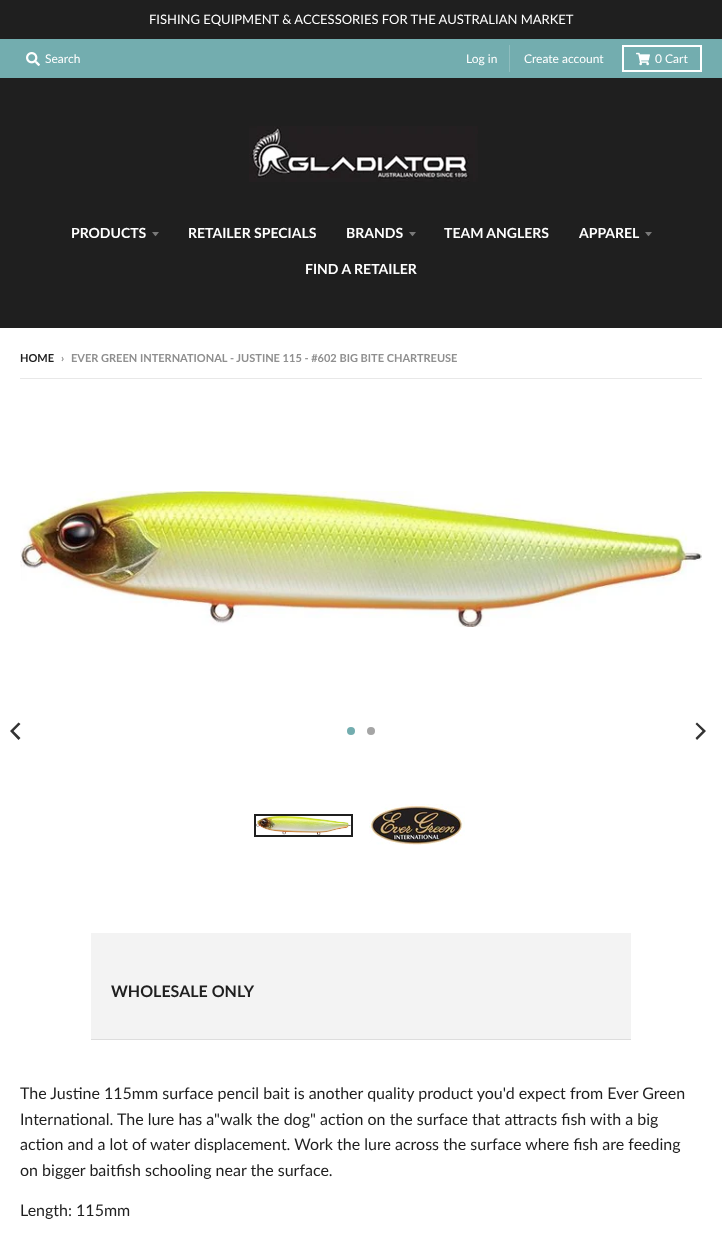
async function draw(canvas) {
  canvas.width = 722
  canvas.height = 1237
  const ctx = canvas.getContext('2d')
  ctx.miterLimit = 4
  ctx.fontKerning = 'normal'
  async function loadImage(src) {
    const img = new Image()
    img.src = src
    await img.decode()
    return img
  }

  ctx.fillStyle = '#fff'
  ctx.fillRect(0, 0, 722, 1237)
  ctx.fillStyle = '#1f1f1f'
  ctx.fillRect(0, 0, 722, 39)
  ctx.font = '13px Lato'
  ctx.fillStyle = '#fff'
  ctx.fillText('FISHING EQUIPMENT & ACCESSORIES FOR THE AUSTRALIAN MARKET', 149, 24)
  ctx.fillStyle = '#73adaf'
  ctx.fillRect(0, 39, 722, 39)
  ctx.drawImage(await loadImage('image0.png'), 26, 52, 14, 14)
  ctx.font = '12px Lato'
  ctx.fillStyle = '#fff'
  ctx.fillText('Search', 45, 63)
  ctx.fillStyle = '#8fbdbf'
  ctx.fillRect(509, 45, 1, 27)
  ctx.fillStyle = '#fff'
  ctx.fillText('Log in', 466, 63)
  ctx.fillText('Create account', 524, 63)
  ctx.strokeStyle = '#fff'
  ctx.lineWidth = 2
  ctx.strokeRect(623, 46, 78, 25)
  ctx.drawImage(await loadImage('image1.png'), 636, 52, 14, 14)
  ctx.fillText('0 Cart', 655, 63)
  ctx.fillStyle = '#1f1f1f'
  ctx.fillRect(0, 78, 722, 250)
  ctx.drawImage(await loadImage('image2.png'), 249, 126, 229, 56)
  ctx.font = 'bold 14px Lato'
  ctx.fillStyle = '#fff'
  ctx.fillText('PRODUCTS', 71, 238)
  ctx.fillStyle = '#797979'
  ctx.beginPath()
  ctx.moveTo(152, 232)
  ctx.bezierCurveTo(156.5, 237.5, 154.5, 237.5, 159, 232)
  ctx.closePath()
  ctx.fill()
  ctx.fillStyle = '#fff'
  ctx.fillText('RETAILER SPECIALS', 188, 238)
  ctx.fillText('BRANDS', 346, 238)
  ctx.fillStyle = '#797979'
  ctx.beginPath()
  ctx.moveTo(409, 232)
  ctx.bezierCurveTo(413.5, 237.5, 411.5, 237.5, 416, 232)
  ctx.closePath()
  ctx.fill()
  ctx.fillStyle = '#fff'
  ctx.fillText('TEAM ANGLERS', 444, 238)
  ctx.fillText('APPAREL', 579, 238)
  ctx.fillStyle = '#797979'
  ctx.beginPath()
  ctx.moveTo(645, 232)
  ctx.bezierCurveTo(649.5, 237.5, 647.5, 237.5, 652, 232)
  ctx.closePath()
  ctx.fill()
  ctx.fillStyle = '#fff'
  ctx.fillText('FIND A RETAILER', 305, 274)
  ctx.font = 'bold 11px Lato'
  ctx.fillStyle = '#1f1f1f'
  ctx.fillText('HOME', 20, 362)
  ctx.fillStyle = '#8f8f8f'
  ctx.fillText('›', 61, 362)
  ctx.fillText('EVER GREEN INTERNATIONAL - JUSTINE 115 - #602 BIG BITE CHARTREUSE', 71, 362)
  ctx.fillStyle = '#e8e8e8'
  ctx.fillRect(20, 378, 682, 1)
  ctx.drawImage(await loadImage('image3.png'), 20, 491, 682, 136)
  ctx.fillStyle = '#333'
  ctx.beginPath()
  ctx.moveTo(10, 731)
  ctx.lineTo(18.5, 740)
  ctx.lineTo(20.5, 738)
  ctx.lineTo(13.5, 731)
  ctx.lineTo(20.5, 724)
  ctx.lineTo(18.5, 722.5)
  ctx.closePath()
  ctx.fill()
  ctx.fillStyle = '#73adaf'
  ctx.beginPath()
  ctx.arc(351, 731, 4, 0, 2 * Math.PI)
  ctx.fill()
  ctx.fillStyle = '#a5a5a5'
  ctx.beginPath()
  ctx.arc(371, 731, 4, 0, 2 * Math.PI)
  ctx.fill()
  ctx.fillStyle = '#333'
  ctx.beginPath()
  ctx.moveTo(706, 731)
  ctx.lineTo(697, 722.5)
  ctx.lineTo(695.5, 724)
  ctx.lineTo(702.5, 731)
  ctx.lineTo(695.5, 738)
  ctx.lineTo(697, 740)
  ctx.closePath()
  ctx.fill()
  ctx.strokeStyle = '#1f1f1f'
  ctx.strokeRect(255, 815, 97, 21)
  ctx.drawImage(await loadImage('image4.png'), 256, 816, 95, 19)
  ctx.drawImage(await loadImage('image5.png'), 369, 804, 96, 41)
  ctx.fillStyle = '#f3f3f3'
  ctx.fillRect(91, 933, 540, 106)
  ctx.fillStyle = '#ddd'
  ctx.fillRect(91, 1039, 540, 1)
  ctx.font = 'bold 16px Lato'
  ctx.fillStyle = '#1f1f1f'
  ctx.fillText('WHOLESALE ONLY', 111, 997)
  ctx.font = '16px Lato'
  ctx.fillText('The Justine 115mm surface pencil bait is another quality product you\'d expect from Ever Green', 20, 1099)
  ctx.fillText('International. The lure has a"walk the dog" action on the surface that attracts fish with a big', 20, 1125)
  ctx.fillText('action and a lot of water displacement. Work the lure across the surface where fish are feeding', 20, 1150)
  ctx.fillText('on bigger baitfish schooling near the surface.', 20, 1176)
  ctx.fillText('Length: 115mm', 20, 1216)
}

draw(document.querySelector('canvas'))
